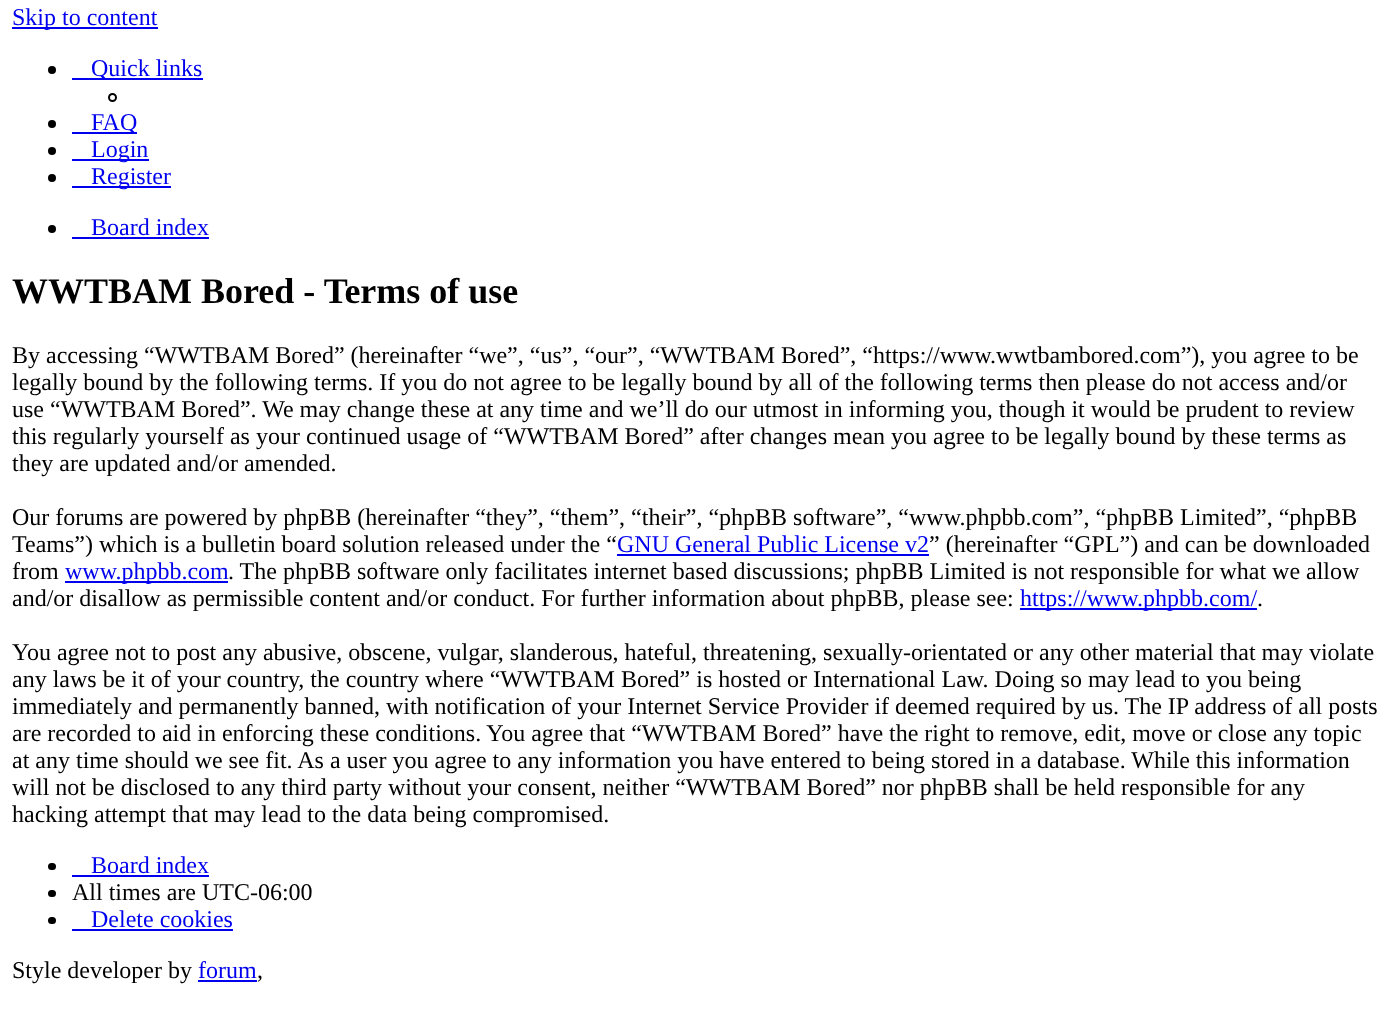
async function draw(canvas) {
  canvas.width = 1396
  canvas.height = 1016
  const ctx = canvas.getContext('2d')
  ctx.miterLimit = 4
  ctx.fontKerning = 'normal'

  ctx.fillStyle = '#fff'
  ctx.fillRect(0, 0, 1396, 1016)
  ctx.fillStyle = '#00e'
  ctx.fillRect(12, 27, 146, 2)
  ctx.font = '24px Liberation Serif'
  ctx.fillText('Skip to content', 12, 25)
  ctx.fillStyle = '#000'
  ctx.beginPath()
  ctx.arc(52, 70, 4, 0, 2 * Math.PI)
  ctx.fill()
  ctx.fillStyle = '#00e'
  ctx.fillRect(72, 78, 131, 2)
  ctx.fillText('Quick links', 91, 76)
  ctx.beginPath()
  ctx.arc(112.5, 97.5, 3.5, 0, 2 * Math.PI)
  ctx.strokeStyle = '#000'
  ctx.lineWidth = 2
  ctx.stroke()
  ctx.fillStyle = '#000'
  ctx.beginPath()
  ctx.arc(52, 124, 4, 0, 2 * Math.PI)
  ctx.fill()
  ctx.fillStyle = '#00e'
  ctx.fillRect(72, 132, 65, 2)
  ctx.fillText('FAQ', 91, 130)
  ctx.fillStyle = '#000'
  ctx.beginPath()
  ctx.arc(52, 151, 4, 0, 2 * Math.PI)
  ctx.fill()
  ctx.fillStyle = '#00e'
  ctx.fillRect(72, 159, 77, 2)
  ctx.fillText('Login', 91, 157)
  ctx.fillStyle = '#000'
  ctx.beginPath()
  ctx.arc(52, 178, 4, 0, 2 * Math.PI)
  ctx.fill()
  ctx.fillStyle = '#00e'
  ctx.fillRect(72, 186, 99, 2)
  ctx.fillText('Register', 91, 184)
  ctx.fillStyle = '#000'
  ctx.beginPath()
  ctx.arc(52, 229, 4, 0, 2 * Math.PI)
  ctx.fill()
  ctx.fillStyle = '#00e'
  ctx.fillText('Board index', 91, 235)
  ctx.fillRect(72, 237, 137, 2)
  ctx.font = 'bold 36px Liberation Serif'
  ctx.fillStyle = '#000'
  ctx.fillText('WWTBAM Bored - Terms of use', 12, 303)
  ctx.font = '24px Liberation Serif'
  ctx.fillText('By accessing “WWTBAM Bored” (hereinafter “we”, “us”, “our”, “WWTBAM Bored”, “https://www.wwtbambored.com”), you agree to be', 12, 363)
  ctx.fillText('legally bound by the following terms. If you do not agree to be legally bound by all of the following terms then please do not access and/or', 12, 390)
  ctx.fillText('use “WWTBAM Bored”. We may change these at any time and we’ll do our utmost in informing you, though it would be prudent to review', 12, 417)
  ctx.fillText('this regularly yourself as your continued usage of “WWTBAM Bored” after changes mean you agree to be legally bound by these terms as', 12, 444)
  ctx.fillText('they are updated and/or amended.', 12, 471)
  ctx.fillText('Our forums are powered by phpBB (hereinafter “they”, “them”, “their”, “phpBB software”, “www.phpbb.com”, “phpBB Limited”, “phpBB', 12, 525)
  ctx.fillText('Teams”) which is a bulletin board solution released under the “', 12, 552)
  ctx.fillStyle = '#00e'
  ctx.fillText('GNU General Public License v2', 617, 552)
  ctx.fillRect(617, 554, 312, 2)
  ctx.fillStyle = '#000'
  ctx.fillText('” (hereinafter “GPL”) and can be downloaded', 929, 552)
  ctx.fillText('from', 12, 579)
  ctx.fillStyle = '#00e'
  ctx.fillRect(65, 581, 163, 2)
  ctx.fillText('www.phpbb.com', 65, 579)
  ctx.fillStyle = '#000'
  ctx.fillText('. The phpBB software only facilitates internet based discussions; phpBB Limited is not responsible for what we allow', 228, 579)
  ctx.fillText('and/or disallow as permissible content and/or conduct. For further information about phpBB, please see:', 12, 606)
  ctx.fillStyle = '#00e'
  ctx.fillRect(1020, 608, 237, 2)
  ctx.fillText('https://www.phpbb.com/', 1020, 606)
  ctx.fillStyle = '#000'
  ctx.fillText('.', 1257, 606)
  ctx.fillText('You agree not to post any abusive, obscene, vulgar, slanderous, hateful, threatening, sexually-orientated or any other material that may violate', 12, 660)
  ctx.fillText('any laws be it of your country, the country where “WWTBAM Bored” is hosted or International Law. Doing so may lead to you being', 12, 687)
  ctx.fillText('immediately and permanently banned, with notification of your Internet Service Provider if deemed required by us. The IP address of all posts', 12, 714)
  ctx.fillText('are recorded to aid in enforcing these conditions. You agree that “WWTBAM Bored” have the right to remove, edit, move or close any topic', 12, 741)
  ctx.fillText('at any time should we see fit. As a user you agree to any information you have entered to being stored in a database. While this information', 12, 768)
  ctx.fillText('will not be disclosed to any third party without your consent, neither “WWTBAM Bored” nor phpBB shall be held responsible for any', 12, 795)
  ctx.fillText('hacking attempt that may lead to the data being compromised.', 12, 822)
  ctx.beginPath()
  ctx.roundRect(48, 863, 8, 7, 3.5)
  ctx.fill()
  ctx.fillStyle = '#00e'
  ctx.fillText('Board index', 91, 873)
  ctx.fillRect(72, 875, 137, 2)
  ctx.fillStyle = '#000'
  ctx.beginPath()
  ctx.roundRect(48, 890, 8, 7, 3.5)
  ctx.fill()
  ctx.fillText('All times are UTC-06:00', 72, 900)
  ctx.beginPath()
  ctx.roundRect(48, 917, 8, 7, 3.5)
  ctx.fill()
  ctx.fillStyle = '#00e'
  ctx.fillText('Delete cookies', 91, 927)
  ctx.fillRect(72, 929, 161, 2)
  ctx.fillStyle = '#000'
  ctx.fillText('Style developer by', 12, 978)
  ctx.fillStyle = '#00e'
  ctx.fillText('forum', 198, 978)
  ctx.fillRect(198, 980, 59, 2)
  ctx.fillStyle = '#000'
  ctx.fillText(',', 257, 978)
}

draw(document.querySelector('canvas'))
